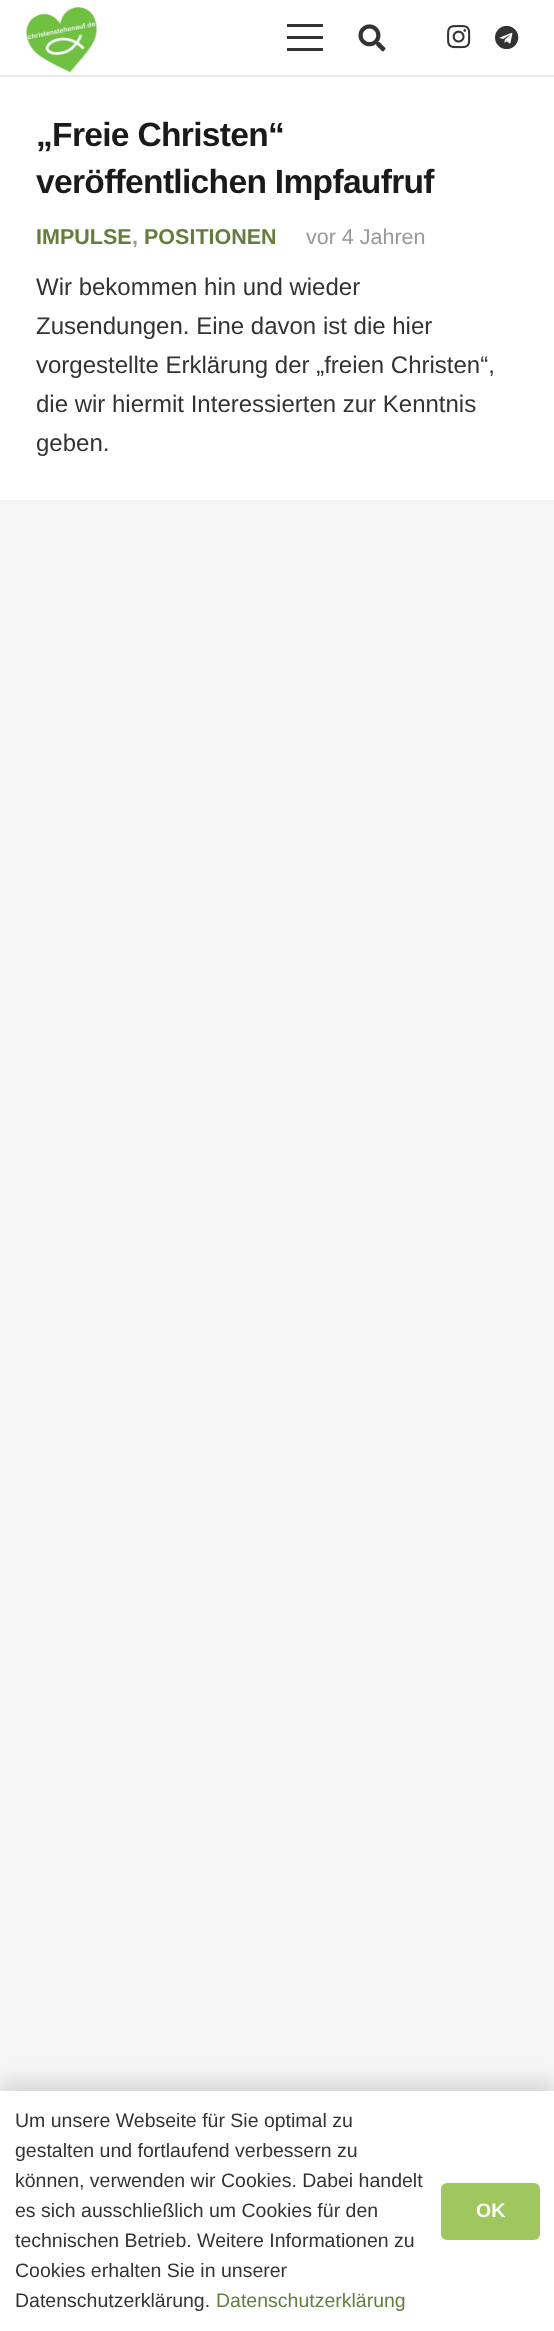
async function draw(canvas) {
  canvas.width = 554
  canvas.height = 2331
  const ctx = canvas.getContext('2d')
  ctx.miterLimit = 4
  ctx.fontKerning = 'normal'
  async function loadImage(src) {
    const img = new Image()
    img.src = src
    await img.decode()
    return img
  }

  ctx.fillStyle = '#f5f5f5'
  ctx.fillRect(0, 0, 554, 2331)
  ctx.fillStyle = '#fff'
  ctx.fillRect(0, 0, 554, 500)
  ctx.fillStyle = '#ebebeb'
  ctx.fillRect(0, 75, 554, 2)
  ctx.drawImage(await loadImage('image0.png'), 25, 7, 73, 66)
  ctx.fillStyle = '#333'
  ctx.fillRect(287, 36, 36, 3)
  ctx.fillRect(287, 24, 36, 3)
  ctx.fillRect(287, 48, 36, 3)
  ctx.drawImage(await loadImage('image1.png'), 358, 24, 28, 28)
  ctx.drawImage(await loadImage('image2.png'), 447, 25, 24, 24)
  ctx.drawImage(await loadImage('image3.png'), 495, 25, 24, 25)
  ctx.letterSpacing = '-0.7px'
  ctx.font = 'bold 33.6px Liberation Sans'
  ctx.fillStyle = '#1a1a1a'
  ctx.fillText('„Freie Christen“', 36, 146)
  ctx.fillText('veröffentlichen Impfaufruf', 36, 193)
  ctx.letterSpacing = '0px'
  ctx.font = 'bold 21.5px Liberation Sans'
  ctx.fillStyle = '#647d3d'
  ctx.fillText('IMPULSE', 36, 244)
  ctx.fillStyle = '#999'
  ctx.fillText(',', 132, 244)
  ctx.fillStyle = '#647d3d'
  ctx.fillText('POSITIONEN', 144, 244)
  ctx.font = '21.5px Liberation Sans'
  ctx.fillStyle = '#999'
  ctx.fillText('vor 4 Jahren', 306, 244)
  ctx.font = '24px Liberation Sans'
  ctx.fillStyle = '#333'
  ctx.fillText('Wir bekommen hin und wieder', 36, 295)
  ctx.fillText('Zusendungen. Eine davon ist die hier', 36, 334)
  ctx.fillText('vorgestellte Erklärung der „freien Christen“,', 36, 373)
  ctx.fillText('die wir hiermit Interessierten zur Kenntnis', 36, 412)
  ctx.fillText('geben.', 36, 451)
  ctx.fillStyle = '#00000026'
  ctx.filter = 'blur(11px)'
  ctx.beginPath()
  ctx.rect(0, 2084, 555, 240)
  ctx.fill()
  ctx.filter = 'none'
  ctx.fillStyle = '#fff'
  ctx.fillRect(0, 2091, 554, 240)
  ctx.font = '19.5px Liberation Sans'
  ctx.fillStyle = '#333'
  ctx.fillText('Um unsere Webseite für Sie optimal zu', 15, 2127)
  ctx.fillText('gestalten und fortlaufend verbessern zu', 15, 2157)
  ctx.fillText('können, verwenden wir Cookies. Dabei handelt', 15, 2187)
  ctx.fillText('es sich ausschließlich um Cookies für den', 15, 2217)
  ctx.fillText('technischen Betrieb. Weitere Informationen zu', 15, 2247)
  ctx.fillText('Cookies erhalten Sie in unserer', 15, 2277)
  ctx.fillText('Datenschutzerklärung.', 15, 2307)
  ctx.fillStyle = '#647d3d'
  ctx.fillText('Datenschutzerklärung', 216, 2307)
  ctx.fillStyle = '#9ec75f'
  ctx.beginPath()
  ctx.roundRect(441, 2183, 99, 57, 6)
  ctx.fill()
  ctx.font = 'bold 19.5px Liberation Sans'
  ctx.fillStyle = '#fff'
  ctx.fillText('OK', 476, 2217)
}

draw(document.querySelector('canvas'))
